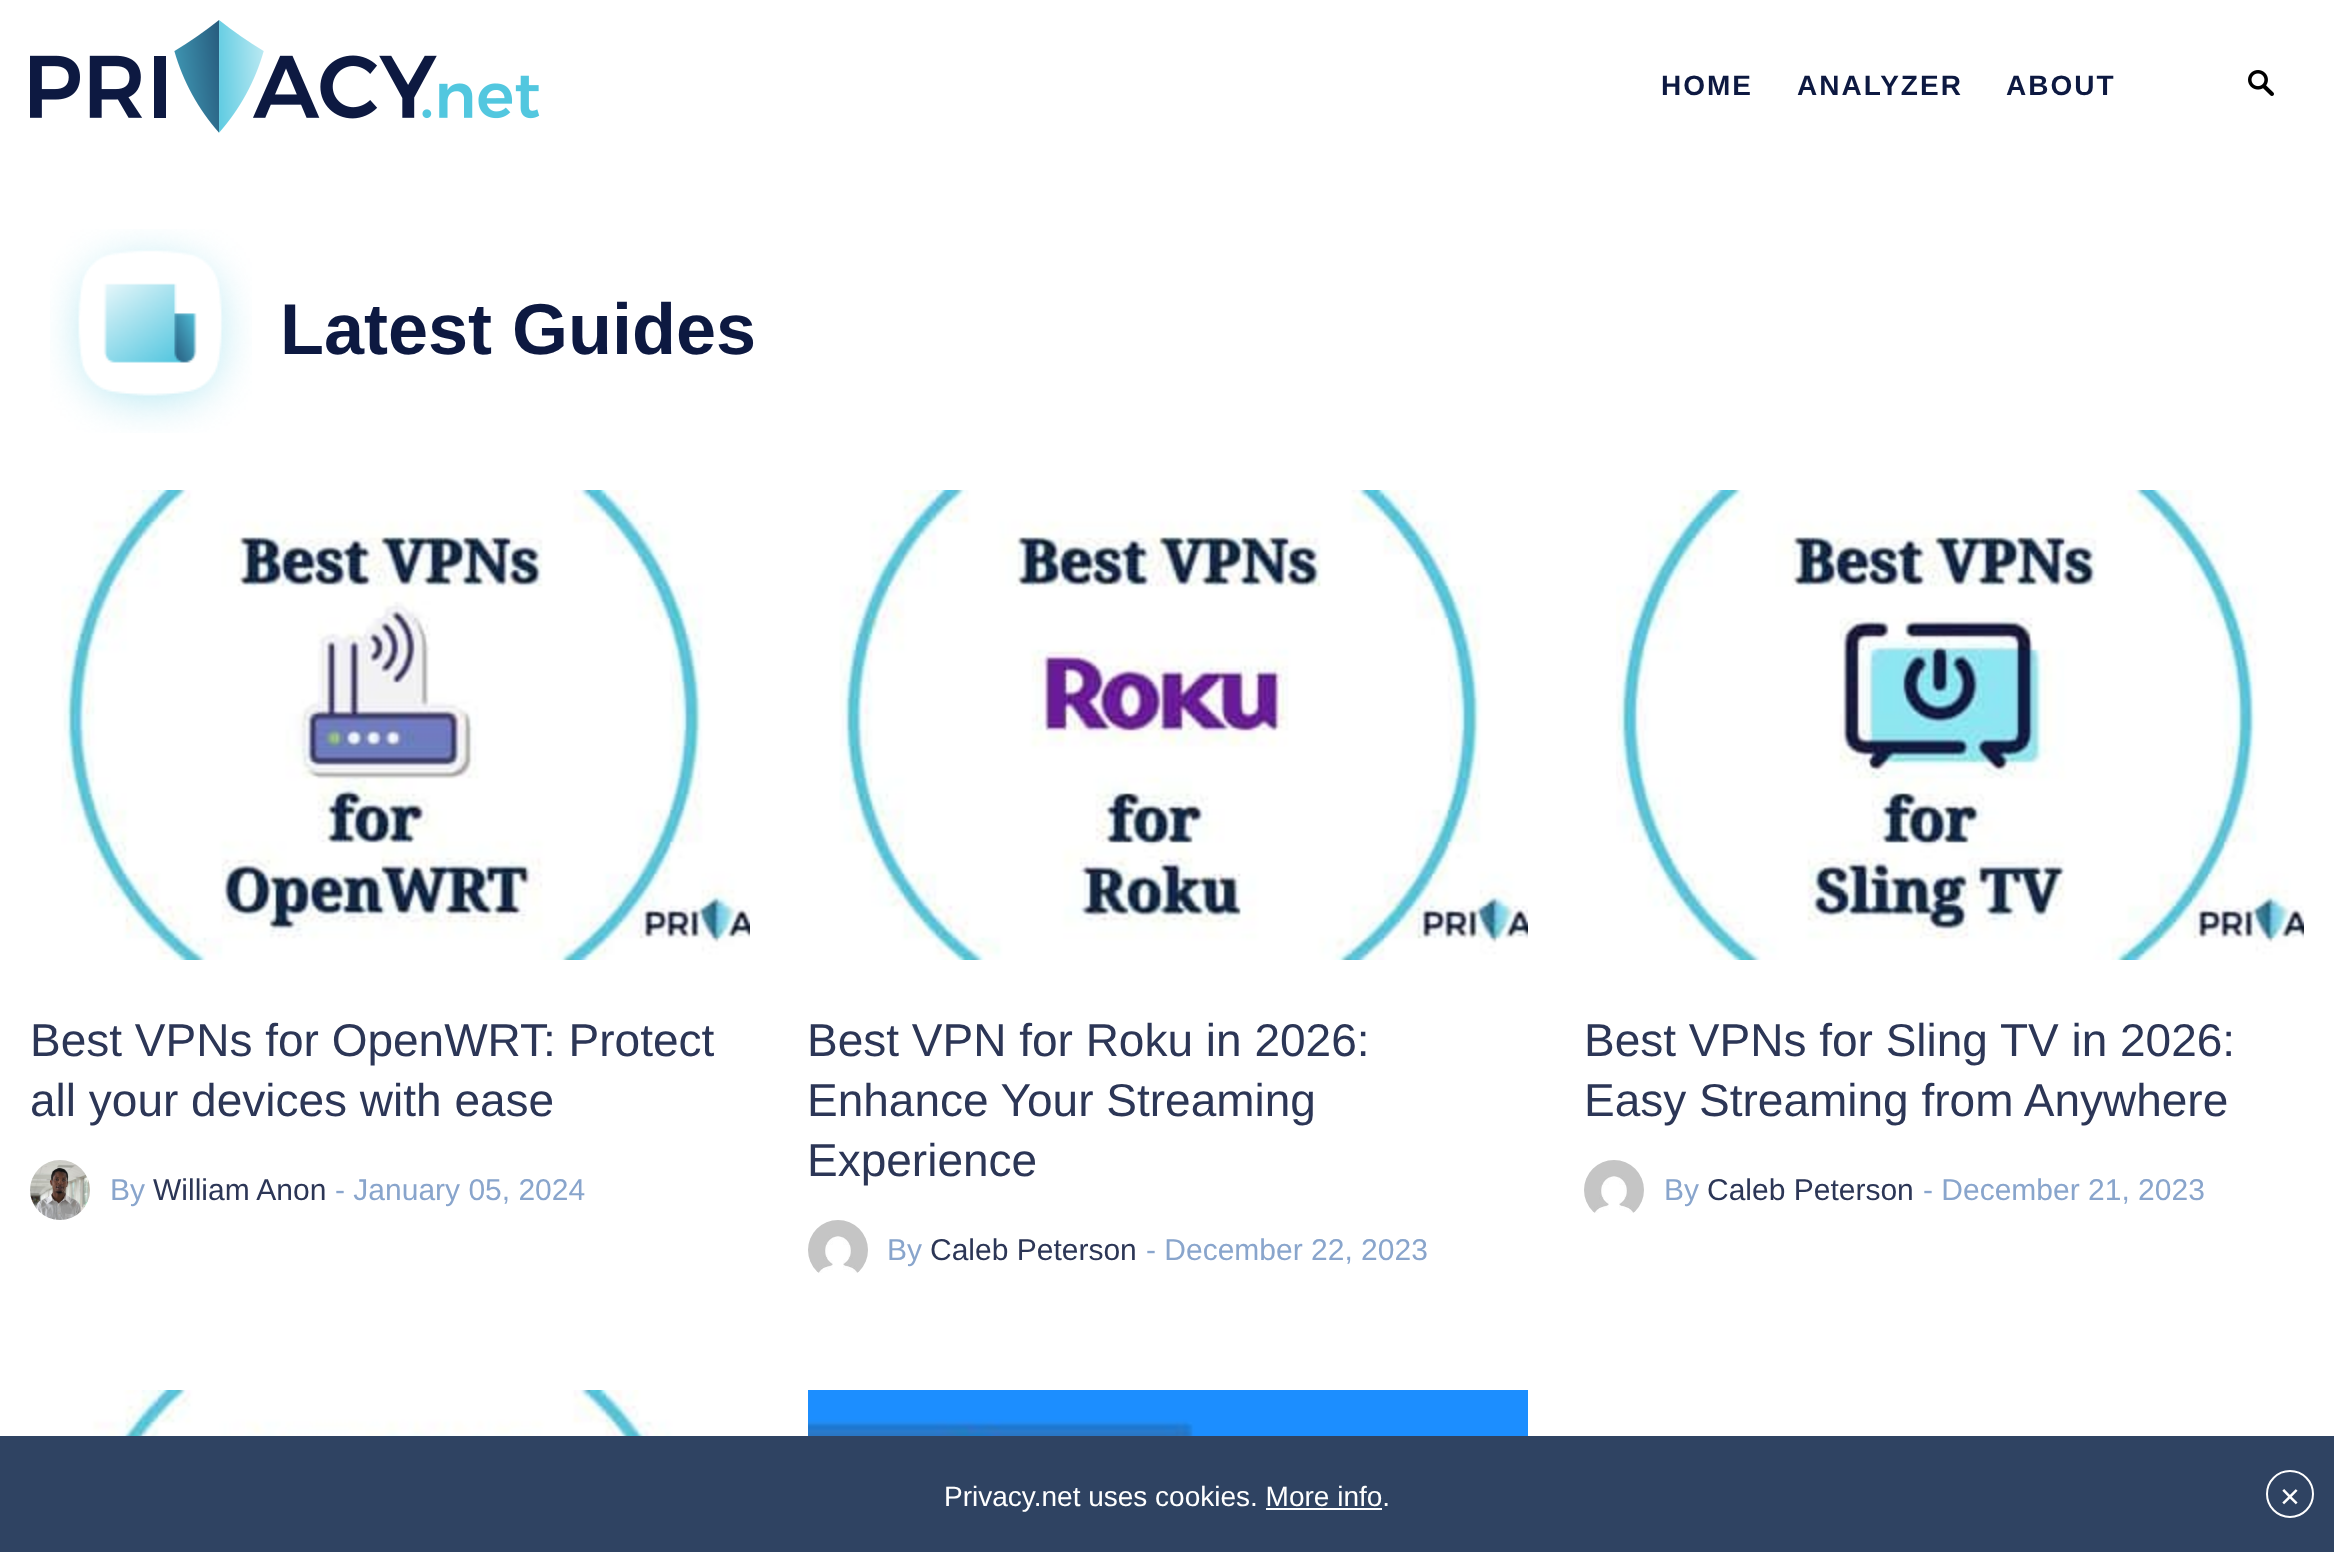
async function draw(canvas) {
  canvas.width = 2334
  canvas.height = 1552
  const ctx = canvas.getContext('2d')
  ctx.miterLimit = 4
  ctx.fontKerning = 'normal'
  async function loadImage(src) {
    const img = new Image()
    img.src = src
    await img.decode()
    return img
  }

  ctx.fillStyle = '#fff'
  ctx.fillRect(0, 0, 2334, 1552)
  ctx.drawImage(await loadImage('image0.png'), 30, 20, 510, 113)
  ctx.letterSpacing = '2px'
  ctx.font = 'bold 28px Liberation Sans'
  ctx.fillStyle = '#0d1941'
  ctx.fillText('HOME', 1661, 95)
  ctx.fillText('ANALYZER', 1797, 95)
  ctx.fillText('ABOUT', 2006, 95)
  ctx.drawImage(await loadImage('image1.png'), 2248, 70, 26, 26)
  ctx.drawImage(await loadImage('image2.png'), 50, 229, 202, 204)
  ctx.letterSpacing = '0px'
  ctx.font = 'bold 72px Liberation Sans'
  ctx.fillText('Latest Guides', 280, 354)
  ctx.drawImage(await loadImage('image3.png'), 61, 490, 689, 470)
  ctx.font = '46px Liberation Sans'
  ctx.fillStyle = '#2c3656'
  ctx.fillText('Best VPNs for OpenWRT: Protect', 30, 1056)
  ctx.fillText('all your devices with ease', 30, 1116)
  ctx.drawImage(await loadImage('image4.png'), 30, 1160, 60, 60)
  ctx.font = '30px Liberation Sans'
  ctx.fillStyle = '#89a5cc'
  ctx.fillText('By', 110, 1200)
  ctx.fillStyle = '#2c3656'
  ctx.fillText('William Anon', 153, 1200)
  ctx.fillStyle = '#89a5cc'
  ctx.fillText('- January 05, 2024', 335, 1200)
  ctx.drawImage(await loadImage('image5.png'), 839, 490, 689, 470)
  ctx.font = '46px Liberation Sans'
  ctx.fillStyle = '#2c3656'
  ctx.fillText('Best VPN for Roku in 2026:', 807, 1056)
  ctx.fillText('Enhance Your Streaming', 807, 1116)
  ctx.fillText('Experience', 807, 1176)
  ctx.drawImage(await loadImage('image6.png'), 808, 1220, 60, 53)
  ctx.font = '30px Liberation Sans'
  ctx.fillStyle = '#89a5cc'
  ctx.fillText('By', 887, 1260)
  ctx.fillStyle = '#2c3656'
  ctx.fillText('Caleb Peterson', 930, 1260)
  ctx.fillStyle = '#89a5cc'
  ctx.fillText('- December 22, 2023', 1146, 1260)
  ctx.drawImage(await loadImage('image7.png'), 1616, 490, 688, 470)
  ctx.font = '46px Liberation Sans'
  ctx.fillStyle = '#2c3656'
  ctx.fillText('Best VPNs for Sling TV in 2026:', 1584, 1056)
  ctx.fillText('Easy Streaming from Anywhere', 1584, 1116)
  ctx.drawImage(await loadImage('image8.png'), 1584, 1160, 60, 53)
  ctx.font = '30px Liberation Sans'
  ctx.fillStyle = '#89a5cc'
  ctx.fillText('By', 1664, 1200)
  ctx.fillStyle = '#2c3656'
  ctx.fillText('Caleb Peterson', 1707, 1200)
  ctx.fillStyle = '#89a5cc'
  ctx.fillText('- December 21, 2023', 1923, 1200)
  ctx.drawImage(await loadImage('image9.png'), 62, 1390, 640, 46)
  ctx.drawImage(await loadImage('image10.png'), 808, 1390, 720, 46)
  ctx.fillStyle = '#2f4362'
  ctx.fillRect(0, 1436, 2334, 116)
  ctx.font = '28px Liberation Sans'
  ctx.fillStyle = '#fff'
  ctx.fillText('Privacy.net uses cookies. More info.', 944, 1506)
  ctx.fillRect(1266, 1508, 116, 2)
  ctx.beginPath()
  ctx.arc(2290, 1494, 23, 0, 2 * Math.PI)
  ctx.strokeStyle = '#fff'
  ctx.lineWidth = 2
  ctx.stroke()
  ctx.font = '34px Liberation Sans'
  ctx.fillText('×', 2280, 1508)
}

draw(document.querySelector('canvas'))
